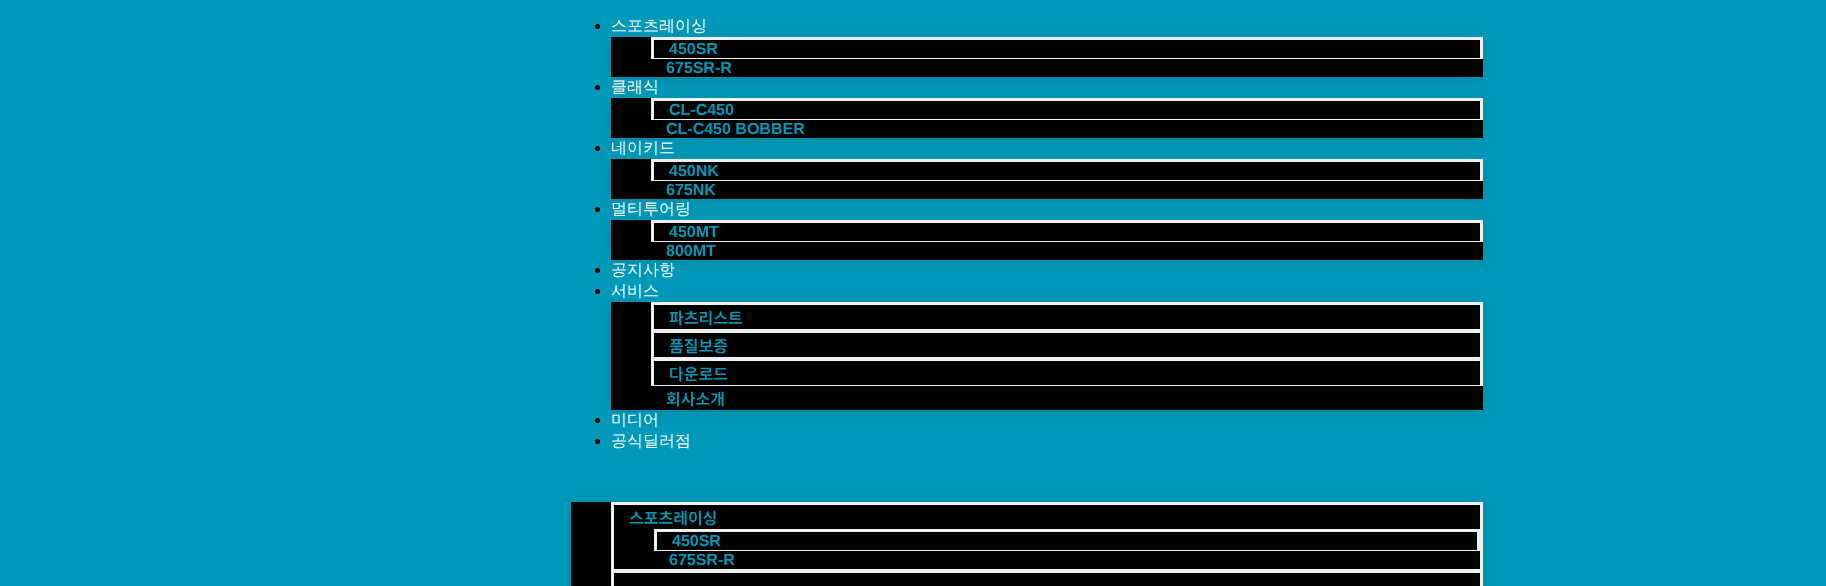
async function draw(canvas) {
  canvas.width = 1826
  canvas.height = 586
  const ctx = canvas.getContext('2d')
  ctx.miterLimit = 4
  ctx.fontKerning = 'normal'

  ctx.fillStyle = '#0099b9'
  ctx.fillRect(0, 0, 1826, 586)
  ctx.fillStyle = '#0000001a'
  ctx.filter = 'blur(7.5px)'
  ctx.beginPath()
  ctx.rect(611, 39, 872, 40)
  ctx.fill()
  ctx.filter = 'none'
  ctx.fillStyle = '#000'
  ctx.beginPath()
  ctx.arc(597.5, 26.5, 2.5, 0, 2 * Math.PI)
  ctx.fill()
  ctx.font = '500 16px WenQuanYi Zen Hei'
  ctx.fillStyle = '#fff'
  ctx.fillText('스포츠레이싱', 611, 31)
  ctx.fillStyle = '#000'
  ctx.fillRect(611, 37, 872, 40)
  ctx.fillStyle = '#efefef'
  ctx.fillRect(651, 37, 832, 3)
  ctx.fillRect(1480, 37, 3, 22)
  ctx.fillRect(651, 58, 832, 1)
  ctx.fillRect(651, 37, 3, 22)
  ctx.font = 'bold 16px Liberation Sans'
  ctx.fillStyle = '#0099b9'
  ctx.fillText('450SR', 669, 54)
  ctx.fillText('675SR-R', 666, 73)
  ctx.fillStyle = '#0000001a'
  ctx.filter = 'blur(7.5px)'
  ctx.beginPath()
  ctx.rect(611, 100, 872, 40)
  ctx.fill()
  ctx.filter = 'none'
  ctx.fillStyle = '#000'
  ctx.beginPath()
  ctx.arc(597.5, 87.5, 2.5, 0, 2 * Math.PI)
  ctx.fill()
  ctx.font = '500 16px WenQuanYi Zen Hei'
  ctx.fillStyle = '#fff'
  ctx.fillText('클래식', 611, 92)
  ctx.fillStyle = '#000'
  ctx.fillRect(611, 98, 872, 40)
  ctx.fillStyle = '#efefef'
  ctx.fillRect(651, 98, 832, 3)
  ctx.fillRect(1480, 98, 3, 22)
  ctx.fillRect(651, 119, 832, 1)
  ctx.fillRect(651, 98, 3, 22)
  ctx.font = 'bold 16px Liberation Sans'
  ctx.fillStyle = '#0099b9'
  ctx.fillText('CL-C450', 669, 115)
  ctx.fillText('CL-C450 BOBBER', 666, 134)
  ctx.fillStyle = '#0000001a'
  ctx.filter = 'blur(7.5px)'
  ctx.beginPath()
  ctx.rect(611, 161, 872, 40)
  ctx.fill()
  ctx.filter = 'none'
  ctx.fillStyle = '#000'
  ctx.beginPath()
  ctx.arc(597.5, 148.5, 2.5, 0, 2 * Math.PI)
  ctx.fill()
  ctx.font = '500 16px WenQuanYi Zen Hei'
  ctx.fillStyle = '#fff'
  ctx.fillText('네이키드', 611, 153)
  ctx.fillStyle = '#000'
  ctx.fillRect(611, 159, 872, 40)
  ctx.fillStyle = '#efefef'
  ctx.fillRect(651, 159, 832, 3)
  ctx.fillRect(1480, 159, 3, 22)
  ctx.fillRect(651, 180, 832, 1)
  ctx.fillRect(651, 159, 3, 22)
  ctx.font = 'bold 16px Liberation Sans'
  ctx.fillStyle = '#0099b9'
  ctx.fillText('450NK', 669, 176)
  ctx.fillText('675NK', 666, 195)
  ctx.fillStyle = '#0000001a'
  ctx.filter = 'blur(7.5px)'
  ctx.beginPath()
  ctx.rect(611, 222, 872, 40)
  ctx.fill()
  ctx.filter = 'none'
  ctx.fillStyle = '#000'
  ctx.beginPath()
  ctx.arc(597.5, 209.5, 2.5, 0, 2 * Math.PI)
  ctx.fill()
  ctx.font = '500 16px WenQuanYi Zen Hei'
  ctx.fillStyle = '#fff'
  ctx.fillText('멀티투어링', 611, 214)
  ctx.fillStyle = '#000'
  ctx.fillRect(611, 220, 872, 40)
  ctx.fillStyle = '#efefef'
  ctx.fillRect(651, 220, 832, 3)
  ctx.fillRect(1480, 220, 3, 22)
  ctx.fillRect(651, 241, 832, 1)
  ctx.fillRect(651, 220, 3, 22)
  ctx.font = 'bold 16px Liberation Sans'
  ctx.fillStyle = '#0099b9'
  ctx.fillText('450MT', 669, 237)
  ctx.fillText('800MT', 666, 256)
  ctx.fillStyle = '#000'
  ctx.beginPath()
  ctx.arc(597.5, 270.5, 2.5, 0, 2 * Math.PI)
  ctx.fill()
  ctx.font = '500 16px WenQuanYi Zen Hei'
  ctx.fillStyle = '#fff'
  ctx.fillText('공지사항', 611, 275)
  ctx.fillStyle = '#0000001a'
  ctx.filter = 'blur(7.5px)'
  ctx.beginPath()
  ctx.rect(611, 304, 872, 108)
  ctx.fill()
  ctx.filter = 'none'
  ctx.fillStyle = '#000'
  ctx.beginPath()
  ctx.arc(597.5, 291.5, 2.5, 0, 2 * Math.PI)
  ctx.fill()
  ctx.fillStyle = '#fff'
  ctx.fillText('서비스', 611, 296)
  ctx.fillStyle = '#000'
  ctx.fillRect(611, 302, 872, 108)
  ctx.fillStyle = '#efefef'
  ctx.fillRect(651, 302, 832, 3)
  ctx.fillRect(1480, 302, 3, 28)
  ctx.fillRect(651, 329, 832, 4)
  ctx.fillRect(651, 302, 3, 28)
  ctx.font = '600 16px Noto Sans KR'
  ctx.fillStyle = '#0099b9'
  ctx.fillText('파츠리스트', 669, 324)
  ctx.fillStyle = '#efefef'
  ctx.fillRect(1480, 330, 3, 28)
  ctx.fillRect(651, 357, 832, 4)
  ctx.fillRect(651, 330, 3, 28)
  ctx.fillStyle = '#0099b9'
  ctx.fillText('품질보증', 669, 352)
  ctx.fillStyle = '#efefef'
  ctx.fillRect(1480, 358, 3, 28)
  ctx.fillRect(651, 385, 832, 1)
  ctx.fillRect(651, 358, 3, 28)
  ctx.fillStyle = '#0099b9'
  ctx.fillText('다운로드', 669, 380)
  ctx.fillText('회사소개', 666, 405)
  ctx.fillStyle = '#000'
  ctx.beginPath()
  ctx.arc(597.5, 420.5, 2.5, 0, 2 * Math.PI)
  ctx.fill()
  ctx.font = '500 16px WenQuanYi Zen Hei'
  ctx.fillStyle = '#fff'
  ctx.fillText('미디어', 611, 425)
  ctx.fillStyle = '#000'
  ctx.beginPath()
  ctx.arc(597.5, 441.5, 2.5, 0, 2 * Math.PI)
  ctx.fill()
  ctx.fillStyle = '#fff'
  ctx.fillText('공식딜러점', 611, 446)
  ctx.fillStyle = '#0000001a'
  ctx.filter = 'blur(7.5px)'
  ctx.beginPath()
  ctx.rect(571, 504, 912, 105)
  ctx.fill()
  ctx.filter = 'none'
  ctx.fillStyle = '#000'
  ctx.fillRect(571, 502, 909, 84)
  ctx.fillStyle = '#efefef'
  ctx.fillRect(611, 502, 872, 3)
  ctx.fillRect(1480, 502, 3, 68)
  ctx.fillRect(611, 569, 872, 4)
  ctx.fillRect(611, 502, 3, 84)
  ctx.font = '600 16px Noto Sans KR'
  ctx.fillStyle = '#0099b9'
  ctx.fillText('스포츠레이싱', 629, 524)
  ctx.fillStyle = '#efefef'
  ctx.fillRect(654, 529, 826, 3)
  ctx.fillRect(1477, 529, 3, 22)
  ctx.fillRect(654, 550, 826, 1)
  ctx.fillRect(654, 529, 3, 22)
  ctx.font = 'bold 16px Liberation Sans'
  ctx.fillStyle = '#0099b9'
  ctx.fillText('450SR', 672, 546)
  ctx.fillText('675SR-R', 669, 565)
  ctx.fillStyle = '#efefef'
  ctx.fillRect(1480, 570, 3, 16)
}

draw(document.querySelector('canvas'))
